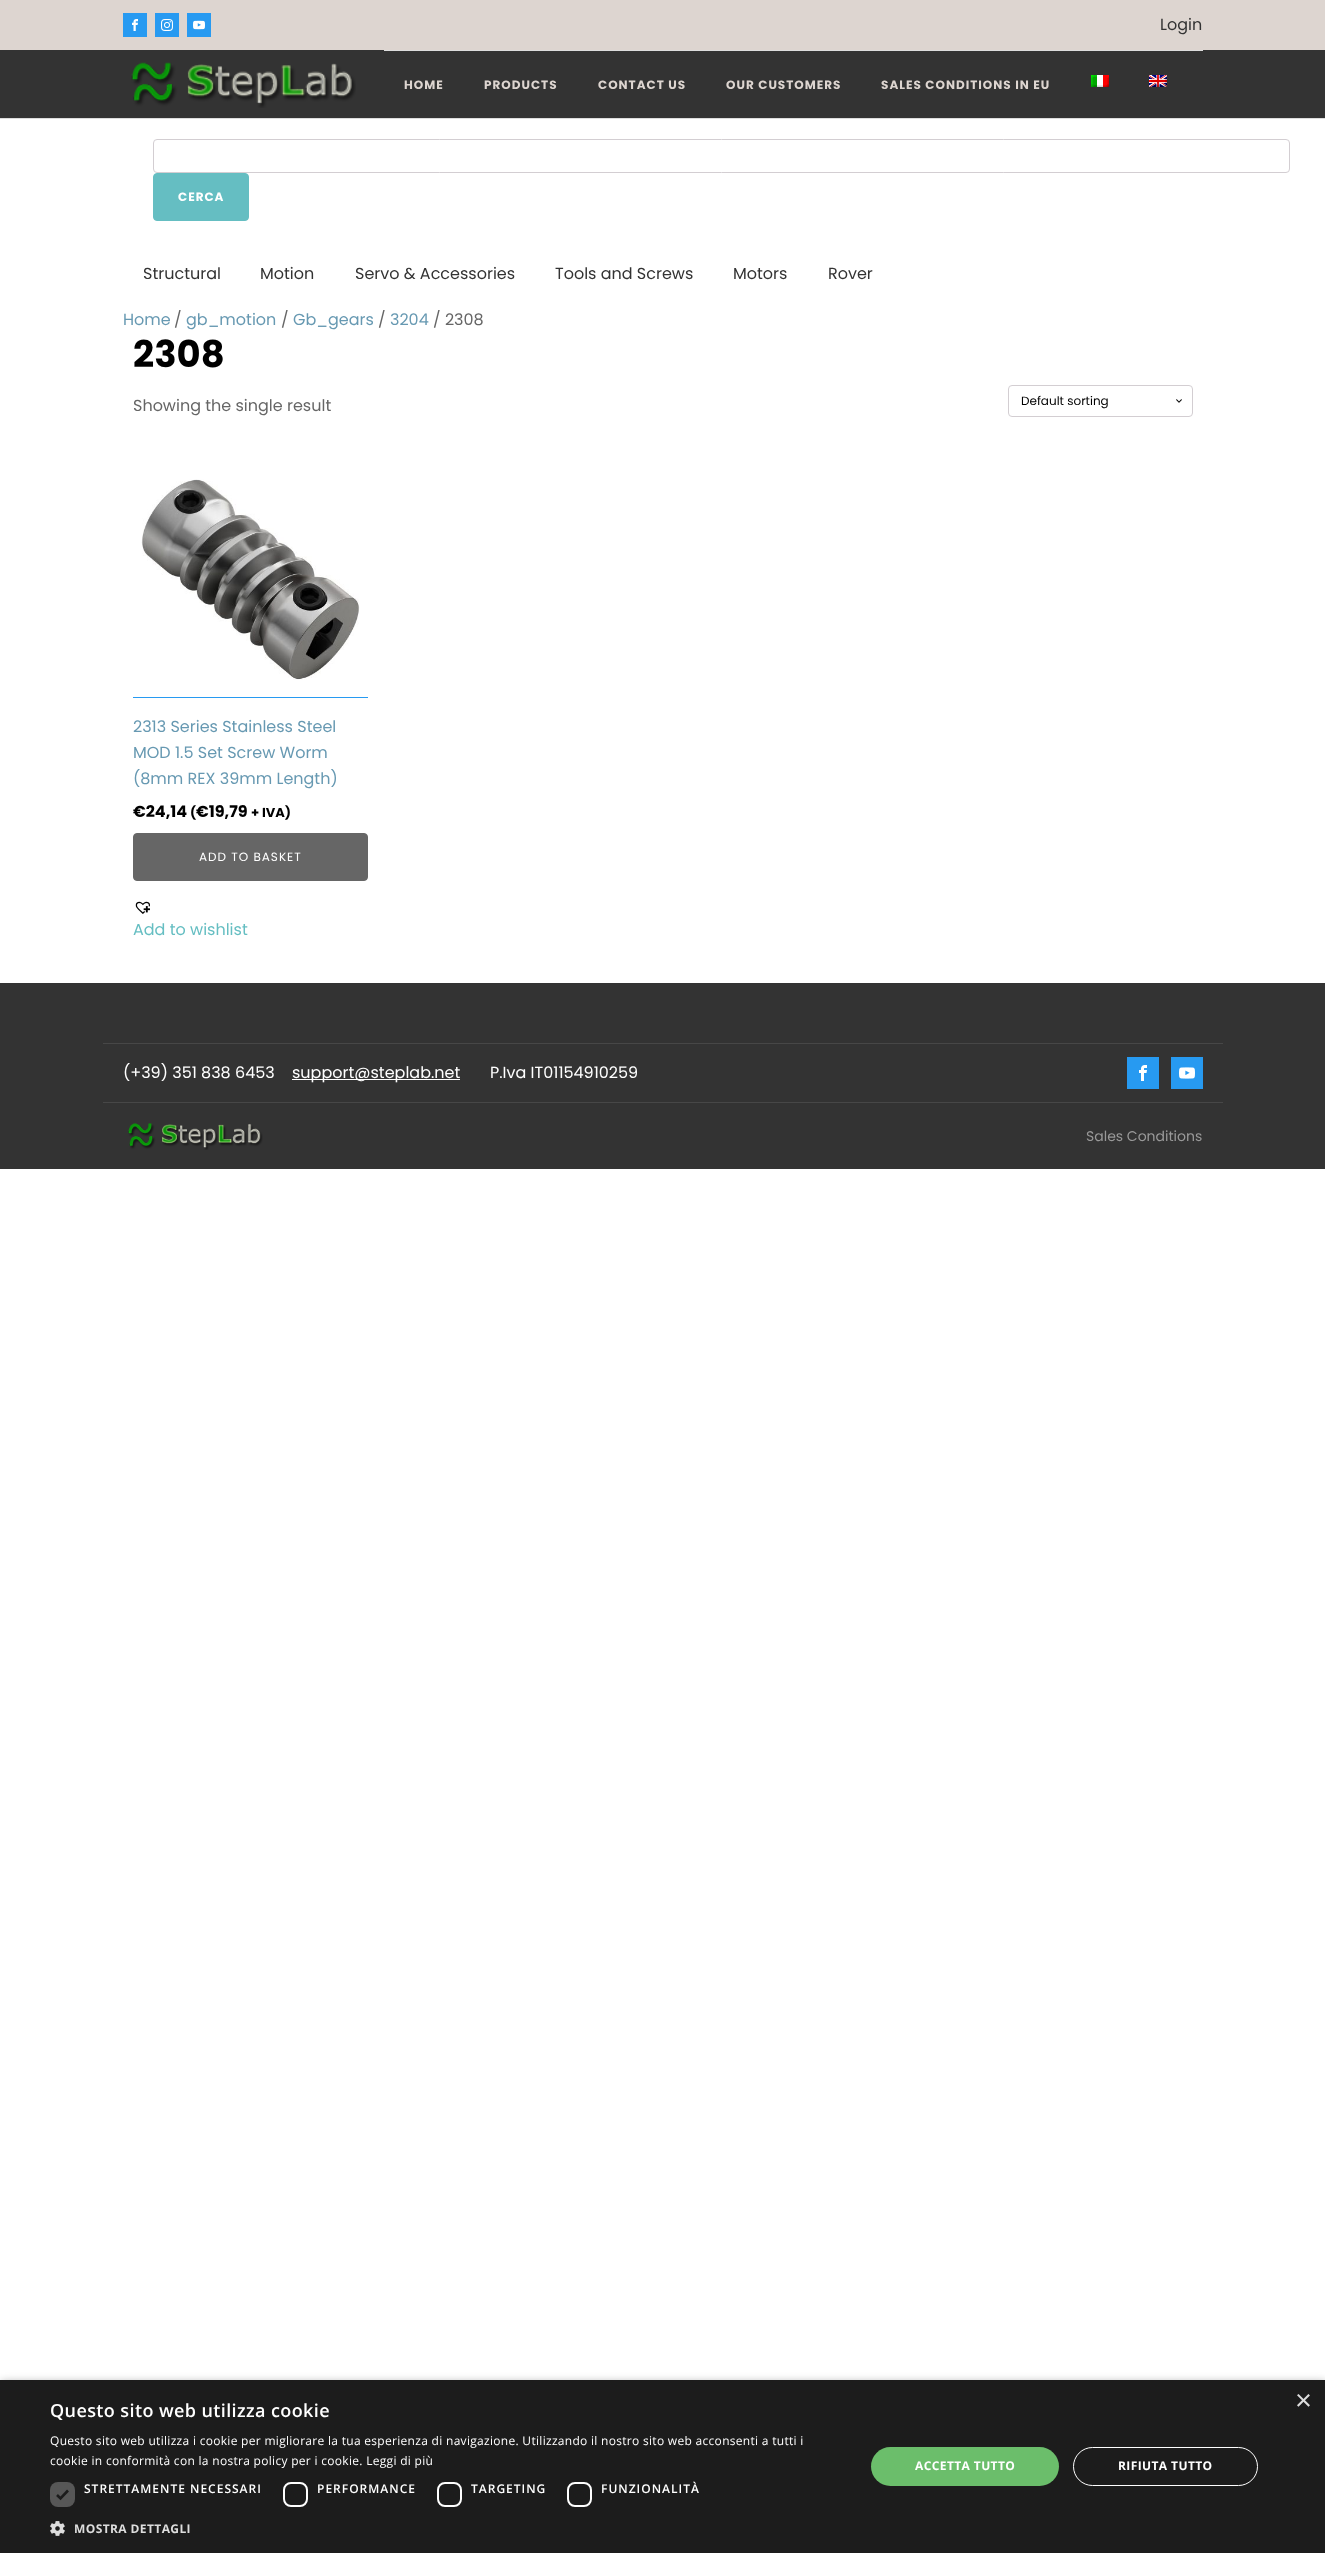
async function draw(canvas) {
  canvas.width = 1325
  canvas.height = 2553
  const ctx = canvas.getContext('2d')
  ctx.miterLimit = 4
  ctx.fontKerning = 'normal'
  async function loadImage(src) {
    const img = new Image()
    img.src = src
    await img.decode()
    return img
  }

  ctx.fillStyle = '#fff'
  ctx.fillRect(0, 0, 1325, 2553)
  ctx.fillStyle = '#ddd5d0'
  ctx.fillRect(0, 0, 1325, 50)
  ctx.fillStyle = '#279af1'
  ctx.fillRect(123, 13, 24, 24)
  ctx.drawImage(await loadImage('image0.png'), 132, 19, 6, 12)
  ctx.fillRect(155, 13, 24, 24)
  ctx.drawImage(await loadImage('image1.png'), 161, 19, 12, 12)
  ctx.fillRect(187, 13, 24, 24)
  ctx.drawImage(await loadImage('image2.png'), 193, 20, 12, 10)
  ctx.font = '16px Poppins'
  ctx.fillStyle = '#333'
  ctx.fillText('Login', 1160, 30)
  ctx.fillRect(0, 50, 1325, 68)
  ctx.fillStyle = '#ddd'
  ctx.fillRect(0, 118, 1325, 1)
  ctx.drawImage(await loadImage('image3.png'), 131, 62, 225, 46)
  ctx.fillRect(384, 50, 819, 1)
  ctx.letterSpacing = '1px'
  ctx.font = 'bold 12px Poppins'
  ctx.fillStyle = '#ddd5d0'
  ctx.fillText('HOME', 404, 89)
  ctx.fillText('PRODUCTS', 484, 89)
  ctx.fillText('CONTACT US', 598, 89)
  ctx.fillText('OUR CUSTOMERS', 726, 89)
  ctx.fillText('SALES CONDITIONS IN EU', 881, 89)
  ctx.drawImage(await loadImage('image4.png'), 1091, 75, 18, 12)
  ctx.drawImage(await loadImage('image5.png'), 1149, 75, 18, 12)
  ctx.beginPath()
  ctx.roundRect(153.5, 139.5, 1136, 33, 3.5)
  ctx.strokeStyle = '#d3ced2'
  ctx.stroke()
  ctx.fillStyle = '#65bec2'
  ctx.beginPath()
  ctx.roundRect(153.5, 173.5, 95, 47, 3.5)
  ctx.fill()
  ctx.strokeStyle = '#65bec2'
  ctx.stroke()
  ctx.fillStyle = '#fff'
  ctx.fillText('CERCA', 178, 201)
  ctx.letterSpacing = '0px'
  ctx.font = '16px Poppins'
  ctx.fillStyle = '#333'
  ctx.fillText('Structural', 143, 279)
  ctx.fillText('Motion', 260, 279)
  ctx.fillText('Servo & Accessories', 355, 279)
  ctx.fillText('Tools and Screws', 555, 279)
  ctx.fillText('Motors', 733, 279)
  ctx.fillText('Rover', 828, 279)
  ctx.fillStyle = '#6799b2'
  ctx.fillText('Home', 123, 325)
  ctx.fillStyle = '#666'
  ctx.fillText('/', 174, 325)
  ctx.fillStyle = '#6799b2'
  ctx.fillText('gb_motion', 186, 325)
  ctx.fillStyle = '#666'
  ctx.fillText('/', 281, 325)
  ctx.fillStyle = '#6799b2'
  ctx.fillText('Gb_gears', 293, 325)
  ctx.fillStyle = '#666'
  ctx.fillText('/', 378, 325)
  ctx.fillStyle = '#6799b2'
  ctx.fillText('3204', 390, 325)
  ctx.fillStyle = '#666'
  ctx.fillText('/ 2308', 433, 325)
  ctx.font = 'bold 37px Poppins'
  ctx.fillStyle = '#000'
  ctx.fillText('2308', 133, 367)
  ctx.font = '16px Poppins'
  ctx.fillStyle = '#666'
  ctx.fillText('Showing the single result', 133, 411)
  ctx.drawImage(await loadImage('image6.png'), 1176, 399, 6, 4)
  ctx.beginPath()
  ctx.roundRect(1008.5, 385.5, 184, 31, 3.5)
  ctx.strokeStyle = '#d3ced2'
  ctx.stroke()
  ctx.font = '12px Poppins'
  ctx.fillStyle = '#000'
  ctx.fillText('Default sorting', 1021, 405)
  ctx.fillStyle = '#279af1'
  ctx.fillRect(133, 697, 235, 1)
  ctx.drawImage(await loadImage('image7.png'), 141, 479, 219, 201)
  ctx.font = '16px Poppins'
  ctx.fillStyle = '#6799b2'
  ctx.fillText('2313 Series Stainless Steel', 133, 732)
  ctx.fillText('MOD 1.5 Set Screw Worm', 133, 758)
  ctx.fillText('(8mm REX 39mm Length)', 133, 784)
  ctx.font = 'bold 16px Poppins'
  ctx.fillStyle = '#000'
  ctx.fillText('€24,14', 133, 817)
  ctx.font = 'bold 13px Poppins'
  ctx.fillText('(', 190, 817)
  ctx.font = 'bold 16px Poppins'
  ctx.fillText('€19,79', 196, 817)
  ctx.font = 'bold 13px Poppins'
  ctx.fillText('+ IVA)', 251, 817)
  ctx.fillStyle = '#666'
  ctx.beginPath()
  ctx.roundRect(133.5, 833.5, 234, 47, 3.5)
  ctx.fill()
  ctx.strokeStyle = '#666'
  ctx.stroke()
  ctx.letterSpacing = '1px'
  ctx.font = '12px Poppins'
  ctx.fillStyle = '#fff'
  ctx.fillText('ADD TO BASKET', 199, 861)
  ctx.drawImage(await loadImage('image8.png'), 135, 901, 15, 13)
  ctx.letterSpacing = '0px'
  ctx.font = '16px Poppins'
  ctx.fillStyle = '#65bec2'
  ctx.fillText('Add to wishlist', 133, 935)
  ctx.fillStyle = '#333'
  ctx.fillRect(0, 983, 1325, 186)
  ctx.fillStyle = '#474747'
  ctx.fillRect(103, 1043, 1120, 1)
  ctx.fillStyle = '#fff'
  ctx.fillText('(+39) 351 838 6453', 123, 1078)
  ctx.fillRect(292, 1079, 168, 1)
  ctx.fillText('support@steplab.net', 292, 1078)
  ctx.fillText('P.Iva IT01154910259', 490, 1078)
  ctx.fillStyle = '#279af1'
  ctx.fillRect(1127, 1057, 32, 32)
  ctx.drawImage(await loadImage('image9.png'), 1139, 1065, 8, 16)
  ctx.fillRect(1171, 1057, 32, 32)
  ctx.drawImage(await loadImage('image10.png'), 1179, 1067, 16, 12)
  ctx.fillStyle = '#474747'
  ctx.fillRect(103, 1102, 1120, 1)
  ctx.drawImage(await loadImage('image11.png'), 128, 1123, 135, 27)
  ctx.font = '14px Poppins'
  ctx.fillStyle = '#999'
  ctx.fillText('Sales Conditions', 1086, 1141)
  ctx.fillStyle = '#00000059'
  ctx.filter = 'blur(4px)'
  ctx.beginPath()
  ctx.rect(1, 2382, 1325, 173)
  ctx.fill()
  ctx.filter = 'none'
  ctx.fillStyle = '#1c1c1c'
  ctx.fillRect(0, 2380, 1325, 173)
  ctx.font = '29px Liberation Sans'
  ctx.fillStyle = '#ddd'
  ctx.fillText('×', 1295, 2410)
  ctx.letterSpacing = '0.4px'
  ctx.font = '600 18px Open Sans'
  ctx.fillStyle = '#fff'
  ctx.fillText('Questo sito web utilizza cookie', 50, 2417)
  ctx.letterSpacing = '0.3px'
  ctx.font = '12px Open Sans'
  ctx.fillText('Questo sito web utilizza i cookie per migliorare la tua esperienza di navigazione. Utilizzando il nostro sito web acconsenti a tutti i', 50, 2445)
  ctx.fillText('cookie in conformità con la nostra policy per i cookie. Leggi di più', 50, 2465)
  ctx.fillStyle = '#575757'
  ctx.beginPath()
  ctx.roundRect(50, 2482, 25, 25, 8)
  ctx.fill()
  ctx.beginPath()
  ctx.moveTo(57, 2495)
  ctx.lineTo(60.5, 2498.5)
  ctx.lineTo(68, 2490.5)
  ctx.strokeStyle = '#1c1c1c'
  ctx.lineWidth = 2.6
  ctx.stroke()
  ctx.letterSpacing = '1px'
  ctx.font = '600 12px Open Sans'
  ctx.fillStyle = '#fff'
  ctx.fillText('STRETTAMENTE NECESSARI', 84, 2493)
  ctx.beginPath()
  ctx.roundRect(284, 2483, 23, 23, 7)
  ctx.strokeStyle = '#fff'
  ctx.lineWidth = 2
  ctx.stroke()
  ctx.fillText('PERFORMANCE', 317, 2493)
  ctx.beginPath()
  ctx.roundRect(438, 2483, 23, 23, 7)
  ctx.stroke()
  ctx.fillText('TARGETING', 471, 2493)
  ctx.beginPath()
  ctx.roundRect(568, 2483, 23, 23, 7)
  ctx.stroke()
  ctx.fillText('FUNZIONALITÀ', 601, 2493)
  ctx.drawImage(await loadImage('image12.png'), 50, 2521, 15, 15)
  ctx.letterSpacing = '0.4px'
  ctx.font = 'bold 12px Open Sans'
  ctx.fillStyle = '#ddd'
  ctx.fillText('MOSTRA DETTAGLI', 74, 2533)
  ctx.fillStyle = '#6bbe6b'
  ctx.beginPath()
  ctx.roundRect(871, 2447, 188, 39, 19.5)
  ctx.fill()
  ctx.fillStyle = '#fff'
  ctx.fillText('ACCETTA TUTTO', 915, 2470)
  ctx.beginPath()
  ctx.roundRect(1073.5, 2447.5, 184, 38, 19)
  ctx.lineWidth = 1
  ctx.stroke()
  ctx.fillText('RIFIUTA TUTTO', 1118, 2470)
}

draw(document.querySelector('canvas'))
